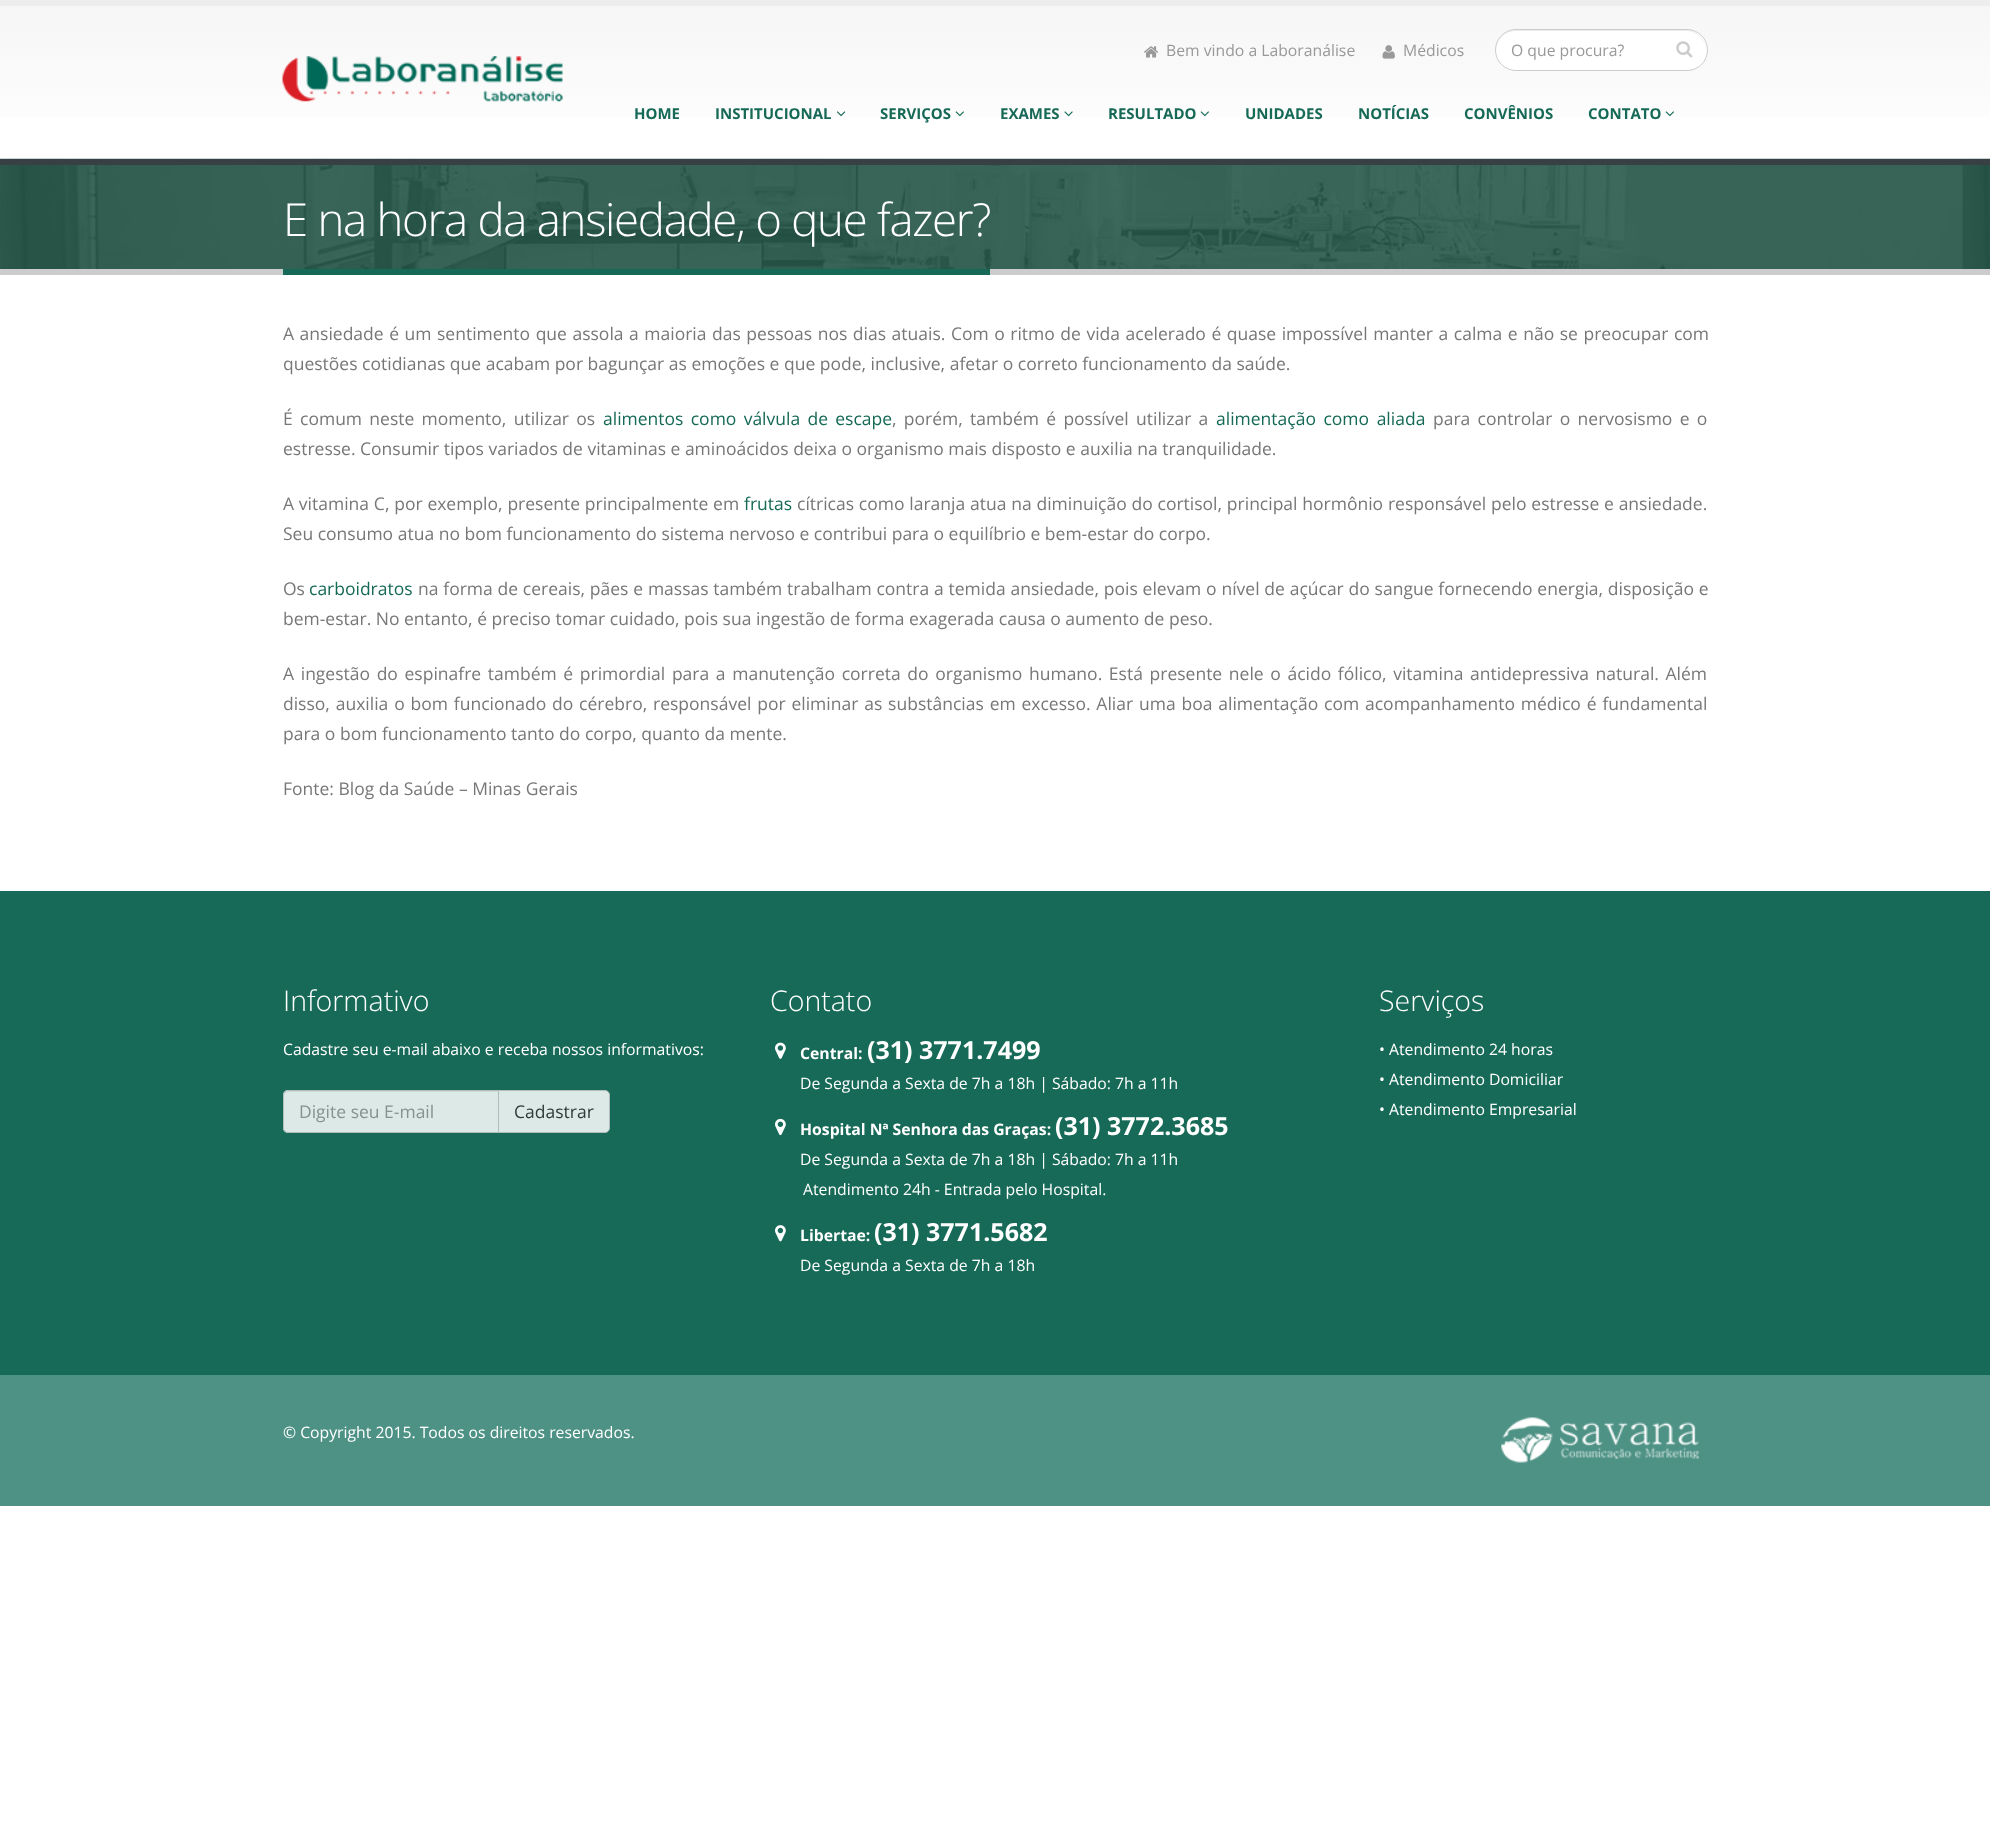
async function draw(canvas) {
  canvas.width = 1990
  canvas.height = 1840
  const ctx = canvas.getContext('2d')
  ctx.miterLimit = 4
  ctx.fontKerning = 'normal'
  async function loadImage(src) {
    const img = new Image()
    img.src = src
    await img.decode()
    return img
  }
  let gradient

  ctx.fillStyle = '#fff'
  ctx.fillRect(0, 0, 1990, 1840)
  gradient = ctx.createLinearGradient(995, 6.2, 995, 159)
  gradient.addColorStop(0, '#f6f6f6')
  gradient.addColorStop(1, '#fff')
  ctx.fillStyle = gradient
  ctx.fillRect(0, 6, 1990, 111)
  ctx.fillStyle = '#ededed'
  ctx.fillRect(0, 0, 1990, 6)
  ctx.drawImage(await loadImage('image0.png'), 1144, 46, 14, 12)
  ctx.font = '15.75px Open Sans'
  ctx.fillStyle = '#999'
  ctx.fillText('Bem vindo a Laboranálise', 1166, 56)
  ctx.drawImage(await loadImage('image1.png'), 1382, 45, 13, 14)
  ctx.fillText('Médicos', 1403, 56)
  ctx.fillStyle = '#fff'
  ctx.beginPath()
  ctx.roundRect(1495, 29, 213, 42, 21)
  ctx.fill()
  ctx.fillStyle = '#ececec'
  ctx.beginPath()
  ctx.moveTo(1516, 31)
  ctx.lineTo(1686, 31)
  ctx.bezierCurveTo(1697, 31, 1706, 40, 1706, 51)
  ctx.lineTo(1706, 50)
  ctx.bezierCurveTo(1706, 39, 1697, 30, 1686, 30)
  ctx.lineTo(1516, 30)
  ctx.bezierCurveTo(1505, 30, 1496, 39, 1496, 50)
  ctx.lineTo(1496, 51)
  ctx.bezierCurveTo(1496, 40, 1505, 31, 1516, 31)
  ctx.closePath()
  ctx.fill()
  ctx.beginPath()
  ctx.roundRect(1495.5, 29.5, 212, 41, 20.5)
  ctx.strokeStyle = '#ccc'
  ctx.stroke()
  ctx.fillStyle = '#999'
  ctx.fillText('O que procura?', 1511, 56)
  ctx.drawImage(await loadImage('image2.png'), 1676, 41, 17, 17)
  ctx.drawImage(await loadImage('image3.png'), 282, 56, 281, 46)
  ctx.font = 'bold 15px Open Sans'
  ctx.fillStyle = '#166956'
  ctx.fillText('HOME', 634, 119)
  ctx.fillText('INSTITUCIONAL', 715, 119)
  ctx.drawImage(await loadImage('image4.png'), 837, 111, 9, 6)
  ctx.fillText('SERVIÇOS', 880, 119)
  ctx.drawImage(await loadImage('image5.png'), 955, 111, 9, 6)
  ctx.fillText('EXAMES', 1000, 119)
  ctx.drawImage(await loadImage('image6.png'), 1064, 111, 9, 6)
  ctx.fillText('RESULTADO', 1108, 119)
  ctx.drawImage(await loadImage('image5.png'), 1200, 111, 9, 6)
  ctx.fillText('UNIDADES', 1245, 119)
  ctx.fillText('NOTÍCIAS', 1358, 119)
  ctx.fillText('CONVÊNIOS', 1464, 119)
  ctx.fillText('CONTATO', 1588, 119)
  ctx.drawImage(await loadImage('image5.png'), 1665, 111, 9, 6)
  ctx.drawImage(await loadImage('image7.png'), 0, 158, 1990, 111)
  ctx.fillStyle = '#384045'
  ctx.fillRect(0, 159, 1990, 6)
  ctx.fillStyle = '#ccc'
  ctx.fillRect(0, 269, 1990, 6)
  ctx.fillStyle = '#166956'
  ctx.fillRect(283, 269, 707, 6)
  ctx.letterSpacing = '-1.25px'
  ctx.font = '300 45.5px Open Sans'
  ctx.fillStyle = '#fff'
  ctx.fillText('E na hora da ansiedade, o que fazer?', 283, 236)
  ctx.letterSpacing = '0px'
  ctx.wordSpacing = '1px'
  ctx.font = '17.5px Open Sans'
  ctx.fillStyle = '#777'
  ctx.fillText('A ansiedade é um sentimento que assola a maioria das pessoas nos dias atuais. Com o ritmo de vida acelerado é quase impossível manter a calma e não se preocupar com', 283, 340)
  ctx.wordSpacing = '0px'
  ctx.fillText('questões cotidianas que acabam por bagunçar as emoções e que pode, inclusive, afetar o correto funcionamento da saúde.', 283, 370)
  ctx.wordSpacing = '2.75px'
  ctx.fillText('É comum neste momento, utilizar os', 283, 425)
  ctx.fillStyle = '#166956'
  ctx.fillText('alimentos como válvula de escape', 603, 425)
  ctx.fillStyle = '#777'
  ctx.fillText(', porém, também é possível utilizar a', 892, 425)
  ctx.wordSpacing = '3px'
  ctx.fillStyle = '#166956'
  ctx.fillText('alimentação como aliada', 1216, 425)
  ctx.wordSpacing = '2.75px'
  ctx.fillStyle = '#777'
  ctx.fillText('para controlar o nervosismo e o', 1433, 425)
  ctx.wordSpacing = '0px'
  ctx.fillText('estresse. Consumir tipos variados de vitaminas e aminoácidos deixa o organismo mais disposto e auxilia na tranquilidade.', 283, 455)
  ctx.wordSpacing = '0.25px'
  ctx.fillText('A vitamina C, por exemplo, presente principalmente em', 283, 510)
  ctx.wordSpacing = '0px'
  ctx.fillStyle = '#166956'
  ctx.fillText('frutas', 744, 510)
  ctx.wordSpacing = '0.25px'
  ctx.fillStyle = '#777'
  ctx.fillText('cítricas como laranja atua na diminuição do cortisol, principal hormônio responsável pelo estresse e ansiedade.', 797, 510)
  ctx.wordSpacing = '0px'
  ctx.fillText('Seu consumo atua no bom funcionamento do sistema nervoso e contribui para o equilíbrio e bem-estar do corpo.', 283, 540)
  ctx.fillText('Os', 283, 595)
  ctx.fillStyle = '#166956'
  ctx.fillText('carboidratos', 309, 595)
  ctx.wordSpacing = '0.25px'
  ctx.fillStyle = '#777'
  ctx.fillText('na forma de cereais, pães e massas também trabalham contra a temida ansiedade, pois elevam o nível de açúcar do sangue fornecendo energia, disposição e', 418, 595)
  ctx.wordSpacing = '0px'
  ctx.fillText('bem-estar. No entanto, é preciso tomar cuidado, pois sua ingestão de forma exagerada causa o aumento de peso.', 283, 625)
  ctx.wordSpacing = '2.1px'
  ctx.fillText('A ingestão do espinafre também é primordial para a manutenção correta do organismo humano. Está presente nele o ácido fólico, vitamina antidepressiva natural. Além', 283, 680)
  ctx.wordSpacing = '1.3px'
  ctx.fillText('disso, auxilia o bom funcionado do cérebro, responsável por eliminar as substâncias em excesso. Aliar uma boa alimentação com acompanhamento médico é fundamental', 283, 710)
  ctx.wordSpacing = '0px'
  ctx.fillText('para o bom funcionamento tanto do corpo, quanto da mente.', 283, 740)
  ctx.fillText('Fonte: Blog da Saúde – Minas Gerais', 283, 795)
  ctx.fillStyle = '#176a57'
  ctx.fillRect(0, 891, 1990, 484)
  ctx.font = '300 28.5px Open Sans'
  ctx.fillStyle = '#fff'
  ctx.fillText('Informativo', 283, 1011)
  ctx.font = '15.75px Open Sans'
  ctx.fillText('Cadastre seu e-mail abaixo e receba nossos informativos:', 283, 1055)
  ctx.fillStyle = '#dce9e6'
  ctx.beginPath()
  ctx.roundRect(498.5, 1090.5, 111, 42, [0, 4.5, 4.5, 0])
  ctx.fill()
  ctx.strokeStyle = '#b1bdba'
  ctx.stroke()
  ctx.beginPath()
  ctx.roundRect(283, 1090, 216, 43, [5, 0, 0, 5])
  ctx.fill()
  ctx.fillStyle = '#ccd9d6'
  ctx.beginPath()
  ctx.moveTo(288, 1092)
  ctx.lineTo(498, 1092)
  ctx.lineTo(498, 1091)
  ctx.lineTo(286, 1091)
  ctx.bezierCurveTo(284, 1092, 284, 1094, 284, 1096)
  ctx.bezierCurveTo(284, 1094, 285, 1092, 288, 1092)
  ctx.closePath()
  ctx.fill()
  ctx.beginPath()
  ctx.roundRect(283.5, 1090.5, 215, 42, [4.5, 0, 0, 4.5])
  ctx.stroke()
  ctx.font = '17.5px Open Sans'
  ctx.fillStyle = '#86928f'
  ctx.fillText('Digite seu E-mail', 299, 1118)
  ctx.fillStyle = '#2f3b38'
  ctx.fillText('Cadastrar', 514, 1118)
  ctx.font = '300 28.5px Open Sans'
  ctx.fillStyle = '#fff'
  ctx.fillText('Contato', 770, 1011)
  ctx.drawImage(await loadImage('image8.png'), 775, 1042, 11, 17)
  ctx.font = 'bold 15.75px Open Sans'
  ctx.fillText('Central:', 800, 1059)
  ctx.font = 'bold 25px Open Sans'
  ctx.fillText('(31) 3771.7499', 867, 1059)
  ctx.font = '15.75px Open Sans'
  ctx.fillText('De Segunda a Sexta de 7h a 18h | Sábado: 7h a 11h', 800, 1089)
  ctx.drawImage(await loadImage('image9.png'), 775, 1118, 11, 18)
  ctx.font = 'bold 15.75px Open Sans'
  ctx.fillText('Hospital Nª Senhora das Graças:', 800, 1135)
  ctx.font = 'bold 25px Open Sans'
  ctx.fillText('(31) 3772.3685', 1055, 1135)
  ctx.font = '15.75px Open Sans'
  ctx.fillText('De Segunda a Sexta de 7h a 18h | Sábado: 7h a 11h', 800, 1165)
  ctx.fillText('Atendimento 24h - Entrada pelo Hospital.', 803, 1195)
  ctx.drawImage(await loadImage('image10.png'), 775, 1225, 11, 17)
  ctx.font = 'bold 15.75px Open Sans'
  ctx.fillText('Libertae:', 800, 1241)
  ctx.font = 'bold 25px Open Sans'
  ctx.fillText('(31) 3771.5682', 874, 1241)
  ctx.font = '15.75px Open Sans'
  ctx.fillText('De Segunda a Sexta de 7h a 18h', 800, 1271)
  ctx.font = '300 28.5px Open Sans'
  ctx.fillText('Serviços', 1379, 1011)
  ctx.font = '15.75px Open Sans'
  ctx.fillText('• Atendimento 24 horas', 1379, 1055)
  ctx.fillText('• Atendimento Domiciliar', 1379, 1085)
  ctx.fillText('• Atendimento Empresarial', 1379, 1115)
  ctx.fillStyle = '#4e9285'
  ctx.fillRect(0, 1375, 1990, 131)
  ctx.fillStyle = '#fff'
  ctx.fillText('© Copyright 2015. Todos os direitos reservados.', 283, 1438)
  ctx.drawImage(await loadImage('image11.png'), 1501, 1417, 198, 46)
}

draw(document.querySelector('canvas'))
